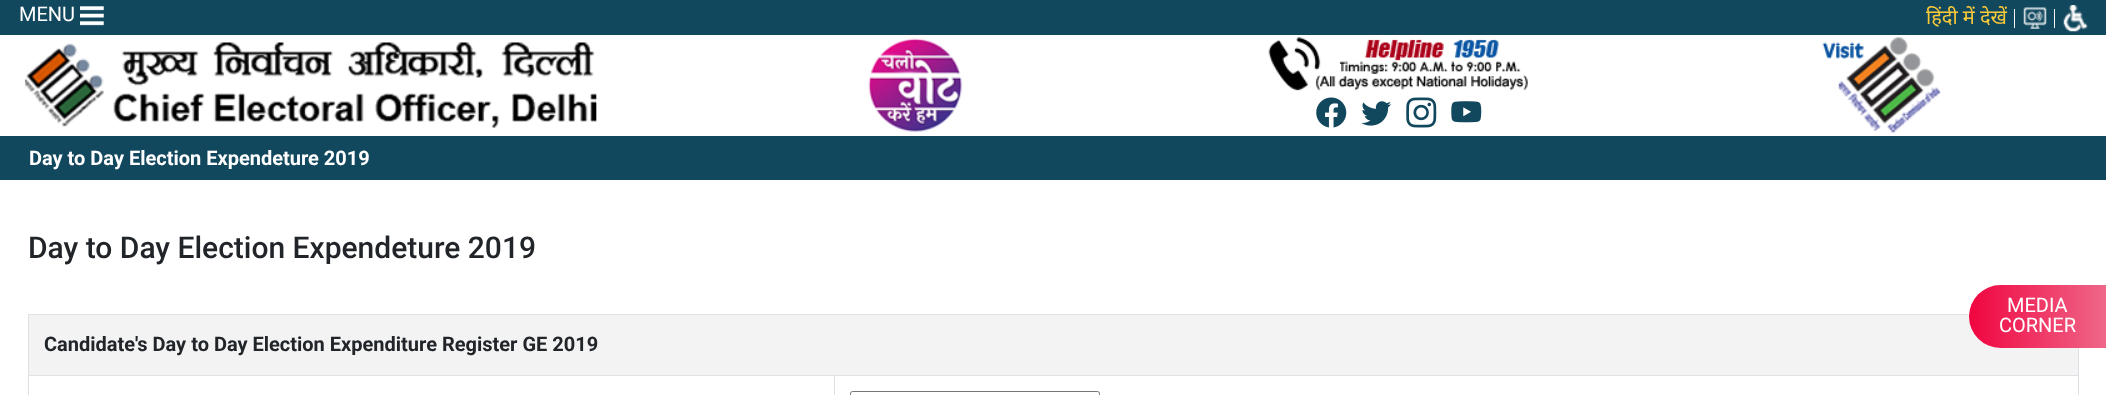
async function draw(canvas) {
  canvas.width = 2106
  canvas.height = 395
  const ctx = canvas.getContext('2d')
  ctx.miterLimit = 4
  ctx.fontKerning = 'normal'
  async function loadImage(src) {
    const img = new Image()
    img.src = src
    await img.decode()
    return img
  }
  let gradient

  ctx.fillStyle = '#fff'
  ctx.fillRect(0, 0, 2106, 395)
  ctx.fillStyle = '#12485e'
  ctx.fillRect(0, 0, 2106, 35)
  ctx.font = '20px Roboto'
  ctx.fillStyle = '#fff'
  ctx.fillText('MENU', 19, 21)
  ctx.drawImage(await loadImage('image0.png'), 80, 6, 24, 20)
  ctx.font = '20px Noto Sans'
  ctx.fillStyle = '#fbca38'
  ctx.fillText('हिंदी में देखें', 1926, 24)
  ctx.fillStyle = '#f7f7f7'
  ctx.fillRect(2014, 9, 1, 19)
  ctx.drawImage(await loadImage('image1.png'), 2023, 7, 24, 22)
  ctx.fillRect(2054, 9, 1, 19)
  ctx.drawImage(await loadImage('image2.png'), 2063, 5, 25, 27)
  ctx.drawImage(await loadImage('image3.png'), 24, 42, 573, 86)
  ctx.drawImage(await loadImage('image4.png'), 868, 38, 95, 95)
  ctx.drawImage(await loadImage('image5.png'), 1268, 37, 260, 54)
  ctx.drawImage(await loadImage('image6.png'), 1316, 97, 31, 31)
  ctx.drawImage(await loadImage('image7.png'), 1361, 101, 31, 25)
  ctx.drawImage(await loadImage('image8.png'), 1406, 97, 31, 31)
  ctx.drawImage(await loadImage('image9.png'), 1451, 101, 31, 22)
  ctx.drawImage(await loadImage('image10.png'), 1822, 37, 119, 96)
  ctx.fillStyle = '#12485e'
  ctx.fillRect(0, 136, 2106, 44)
  ctx.font = 'bold 20px Roboto'
  ctx.fillStyle = '#fff'
  ctx.fillText('Day to Day Election Expendeture 2019', 29, 165)
  ctx.font = '500 30px Roboto'
  ctx.fillStyle = '#212529'
  ctx.fillText('Day to Day Election Expendeture 2019', 28, 258)
  ctx.fillStyle = '#dee2e6'
  ctx.fillRect(28, 314, 1942, 1)
  ctx.fillRect(2078, 348, 1, 47)
  ctx.fillRect(28, 314, 1, 81)
  ctx.fillStyle = '#f3f3f3'
  ctx.fillRect(29, 315, 2049, 60)
  ctx.font = 'bold 20px Roboto'
  ctx.fillStyle = '#212529'
  ctx.fillText('Candidate\'s Day to Day Election Expenditure Register GE 2019', 44, 351)
  ctx.fillStyle = '#dee2e6'
  ctx.fillRect(834, 375, 1245, 1)
  ctx.fillRect(834, 375, 1, 20)
  ctx.fillRect(28, 375, 807, 1)
  ctx.beginPath()
  ctx.roundRect(850.5, 391.5, 249, 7, 2)
  ctx.strokeStyle = '#767676'
  ctx.stroke()
  gradient = ctx.createLinearGradient(1969, 316, 2106, 316)
  gradient.addColorStop(0, '#f00540')
  gradient.addColorStop(1, '#ef6789')
  ctx.fillStyle = gradient
  ctx.beginPath()
  ctx.roundRect(1969, 285, 137, 63, [31.5, 0, 0, 31.5])
  ctx.fill()
  ctx.font = '20px Roboto'
  ctx.fillStyle = '#fff'
  ctx.fillText('MEDIA', 2007, 312)
  ctx.fillText('CORNER', 1999, 332)
}

draw(document.querySelector('canvas'))
